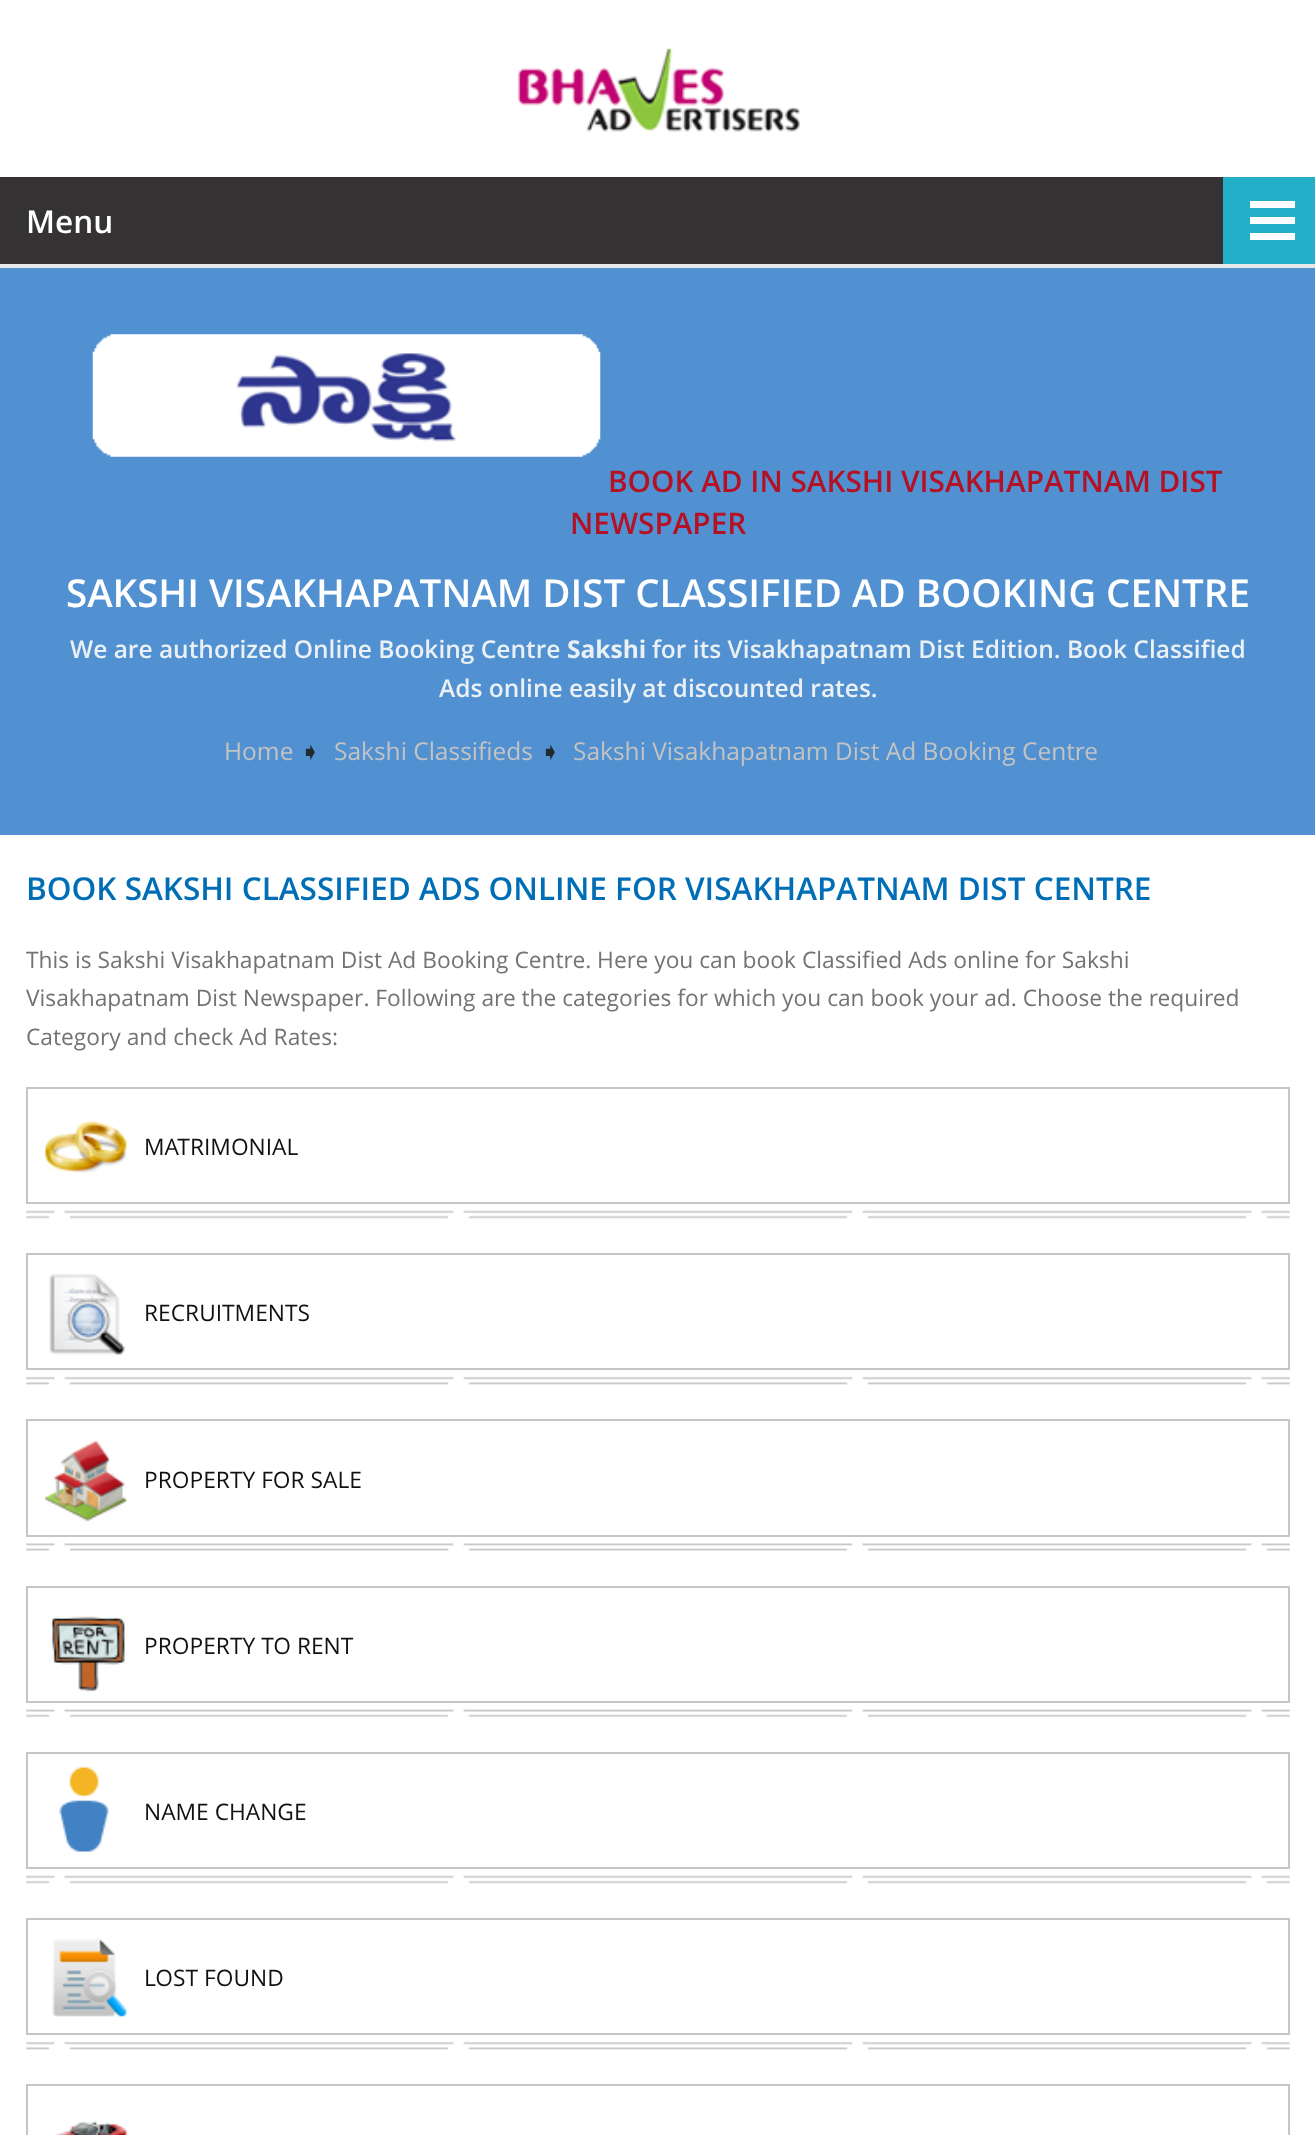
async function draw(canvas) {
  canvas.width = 1315
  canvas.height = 2135
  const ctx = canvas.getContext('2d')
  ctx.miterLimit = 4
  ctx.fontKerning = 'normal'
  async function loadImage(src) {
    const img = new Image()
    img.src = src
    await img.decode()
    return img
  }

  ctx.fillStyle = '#fff'
  ctx.fillRect(0, 0, 1315, 2135)
  ctx.drawImage(await loadImage('image0.png'), 518, 48, 282, 84)
  ctx.fillStyle = '#353233'
  ctx.fillRect(0, 177, 1223, 87)
  ctx.font = '600 31.5px Open Sans'
  ctx.fillStyle = '#fff'
  ctx.fillText('Menu', 26, 233)
  ctx.fillStyle = '#25aec8'
  ctx.fillRect(1223, 177, 92, 87)
  ctx.fillStyle = '#fff'
  ctx.fillRect(1250, 201, 45, 7)
  ctx.fillRect(1250, 217, 45, 7)
  ctx.fillRect(1250, 233, 45, 7)
  ctx.fillStyle = '#5191d1'
  ctx.fillRect(0, 268, 1315, 567)
  ctx.fillStyle = '#e8e8e8'
  ctx.fillRect(0, 264, 1315, 4)
  ctx.drawImage(await loadImage('image1.png'), 92, 334, 509, 123)
  ctx.font = '600 29.75px Open Sans'
  ctx.fillStyle = '#b41124'
  ctx.fillText('BOOK AD IN SAKSHI VISAKHAPATNAM DIST', 608, 492)
  ctx.fillText('NEWSPAPER', 570, 534)
  ctx.font = '600 38.5px Open Sans'
  ctx.fillStyle = '#fff'
  ctx.fillText('SAKSHI VISAKHAPATNAM DIST CLASSIFIED AD BOOKING CENTRE', 66, 607)
  ctx.font = '600 24.5px Open Sans'
  ctx.fillStyle = '#ebf0f5'
  ctx.fillText('We are authorized Online Booking Centre', 70, 658)
  ctx.font = 'bold 24.5px Open Sans'
  ctx.fillText('Sakshi', 567, 658)
  ctx.font = '600 24.5px Open Sans'
  ctx.fillText('for its Visakhapatnam Dist Edition. Book Classified', 652, 658)
  ctx.fillText('Ads online easily at discounted rates.', 439, 697)
  ctx.font = '24.5px Open Sans'
  ctx.fillStyle = '#c3c3c3'
  ctx.fillText('Home', 224, 760)
  ctx.font = '24.5px DejaVu Sans'
  ctx.fillStyle = '#21282e'
  ctx.fillText('➧', 300, 760)
  ctx.font = '24.5px Open Sans'
  ctx.fillStyle = '#c3c3c3'
  ctx.fillText('Sakshi Classifieds', 334, 760)
  ctx.font = '24.5px DejaVu Sans'
  ctx.fillStyle = '#21282e'
  ctx.fillText('➧', 540, 760)
  ctx.font = '24.5px Open Sans'
  ctx.fillStyle = '#c3c3c3'
  ctx.fillText('Sakshi Visakhapatnam Dist Ad Booking Centre', 573, 760)
  ctx.font = '600 31.5px Open Sans'
  ctx.fillStyle = '#006eb6'
  ctx.fillText('BOOK SAKSHI CLASSIFIED ADS ONLINE FOR VISAKHAPATNAM DIST CENTRE', 26, 900)
  ctx.font = '22.75px Open Sans'
  ctx.fillStyle = '#737373'
  ctx.fillText('This is Sakshi Visakhapatnam Dist Ad Booking Centre. Here you can book Classified Ads online for Sakshi', 26, 968)
  ctx.fillText('Visakhapatnam Dist Newspaper. Following are the categories for which you can book your ad. Choose the required', 26, 1006)
  ctx.fillText('Category and check Ad Rates:', 26, 1045)
  ctx.drawImage(await loadImage('image2.png'), 26, 1210, 1264, 9)
  ctx.drawImage(await loadImage('image3.png'), 45, 1121, 82, 54)
  ctx.strokeStyle = '#c6c6c6'
  ctx.lineWidth = 2
  ctx.strokeRect(27, 1088, 1262, 115)
  ctx.fillStyle = '#111'
  ctx.fillText('MATRIMONIAL', 144, 1155)
  ctx.drawImage(await loadImage('image4.png'), 26, 1376, 1264, 9)
  ctx.drawImage(await loadImage('image5.png'), 49, 1274, 76, 81)
  ctx.strokeRect(27, 1254, 1262, 115)
  ctx.fillText('RECRUITMENTS', 144, 1321)
  ctx.drawImage(await loadImage('image6.png'), 26, 1543, 1264, 8)
  ctx.drawImage(await loadImage('image7.png'), 45, 1440, 82, 82)
  ctx.strokeRect(27, 1420, 1262, 116)
  ctx.fillText('PROPERTY FOR SALE', 144, 1488)
  ctx.drawImage(await loadImage('image8.png'), 26, 1709, 1264, 9)
  ctx.drawImage(await loadImage('image9.png'), 50, 1616, 77, 77)
  ctx.strokeRect(27, 1587, 1262, 115)
  ctx.fillText('PROPERTY TO RENT', 144, 1654)
  ctx.drawImage(await loadImage('image2.png'), 26, 1875, 1264, 9)
  ctx.drawImage(await loadImage('image10.png'), 59, 1767, 50, 85)
  ctx.strokeRect(27, 1753, 1262, 115)
  ctx.fillText('NAME CHANGE', 144, 1820)
  ctx.drawImage(await loadImage('image4.png'), 26, 2041, 1264, 9)
  ctx.drawImage(await loadImage('image11.png'), 52, 1938, 75, 79)
  ctx.strokeRect(27, 1919, 1262, 115)
  ctx.fillText('LOST FOUND', 144, 1986)
  ctx.drawImage(await loadImage('image12.png'), 53, 2120, 75, 15)
  ctx.strokeRect(27, 2085, 1262, 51)
}

draw(document.querySelector('canvas'))
